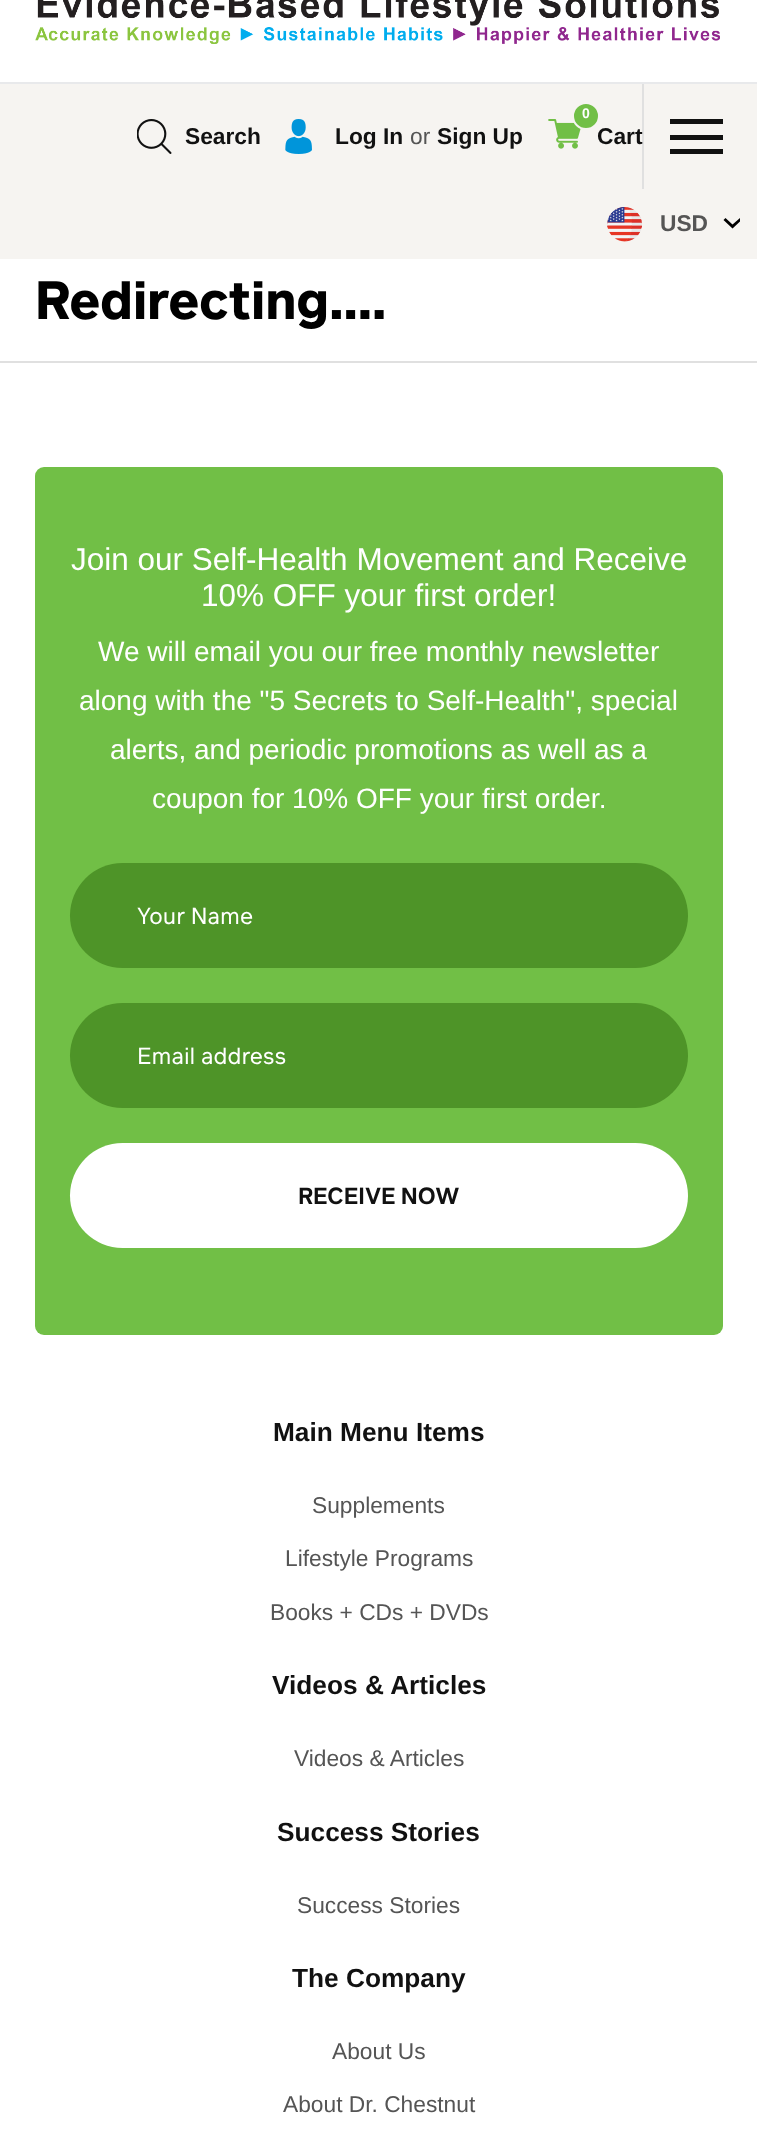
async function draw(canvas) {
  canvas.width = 757
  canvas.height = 2135
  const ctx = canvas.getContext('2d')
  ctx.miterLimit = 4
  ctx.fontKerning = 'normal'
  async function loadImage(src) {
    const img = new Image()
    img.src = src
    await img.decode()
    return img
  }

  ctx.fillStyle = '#fff'
  ctx.fillRect(0, 0, 757, 2135)
  ctx.fillStyle = '#e8e9eb'
  ctx.fillRect(0, 82, 757, 2)
  ctx.drawImage(await loadImage('image0.png'), 35, 0, 685, 44)
  ctx.fillStyle = '#f6f4f1'
  ctx.fillRect(0, 84, 757, 175)
  ctx.fillStyle = '#e0e0e0'
  ctx.fillRect(642, 84, 2, 105)
  ctx.drawImage(await loadImage('image1.png'), 137, 119, 35, 35)
  ctx.font = 'bold 22.75px Liberation Sans'
  ctx.fillStyle = '#111'
  ctx.fillText('Search', 185, 144)
  ctx.drawImage(await loadImage('image2.png'), 285, 119, 27, 35)
  ctx.fillText('Log In', 335, 144)
  ctx.font = '22.75px Liberation Sans'
  ctx.fillStyle = '#555'
  ctx.fillText('or', 410, 144)
  ctx.font = 'bold 22.75px Liberation Sans'
  ctx.fillStyle = '#111'
  ctx.fillText('Sign Up', 437, 144)
  ctx.drawImage(await loadImage('image3.png'), 548, 119, 33, 30)
  ctx.fillText('Cart', 597, 144)
  ctx.fillStyle = '#71bf46'
  ctx.beginPath()
  ctx.arc(586, 116, 13, 0, 2 * Math.PI)
  ctx.fill()
  ctx.strokeStyle = '#f6f4f1'
  ctx.lineWidth = 2
  ctx.stroke()
  ctx.font = 'bold 14px Liberation Sans'
  ctx.fillStyle = '#fff'
  ctx.fillText('0', 582, 118)
  ctx.fillStyle = '#111'
  ctx.fillRect(670, 119, 53, 5)
  ctx.fillRect(670, 135, 53, 5)
  ctx.fillRect(670, 149, 53, 5)
  ctx.drawImage(await loadImage('image4.png'), 607, 207, 35, 35)
  ctx.font = 'bold 22.75px Liberation Sans'
  ctx.fillStyle = '#555'
  ctx.fillText('USD', 660, 231)
  ctx.fillStyle = '#000'
  ctx.beginPath()
  ctx.moveTo(732.5, 228.5)
  ctx.lineTo(740, 221.5)
  ctx.lineTo(740, 218)
  ctx.lineTo(732.5, 224.5)
  ctx.lineTo(725.5, 218)
  ctx.lineTo(723.5, 220)
  ctx.closePath()
  ctx.fill()
  ctx.font = 'bold 52.5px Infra'
  ctx.fillText('Redirecting....', 35, 319)
  ctx.fillStyle = '#e0e0e0'
  ctx.fillRect(0, 361, 757, 2)
  ctx.fillStyle = '#71bf46'
  ctx.beginPath()
  ctx.roundRect(35, 467, 688, 868, 9)
  ctx.fill()
  ctx.font = '31.5px Liberation Sans'
  ctx.fillStyle = '#fff'
  ctx.fillText('Join our Self-Health Movement and Receive', 71, 570)
  ctx.fillText('10% OFF your first order!', 201, 606)
  ctx.font = '28px Liberation Sans'
  ctx.fillText('We will email you our free monthly newsletter', 98, 661)
  ctx.fillText('along with the "5 Secrets to Self-Health", special', 79, 710)
  ctx.fillText('alerts, and periodic promotions as well as a', 110, 759)
  ctx.fillText('coupon for 10% OFF your first order.', 152, 808)
  ctx.fillStyle = '#4e9428'
  ctx.beginPath()
  ctx.roundRect(70, 863, 618, 105, 52.5)
  ctx.fill()
  ctx.font = '22.75px Infra'
  ctx.fillStyle = '#fff'
  ctx.fillText('Your Name', 137, 924)
  ctx.fillStyle = '#4e9428'
  ctx.beginPath()
  ctx.roundRect(70, 1003, 618, 105, 52.5)
  ctx.fill()
  ctx.fillStyle = '#fff'
  ctx.fillText('Email address', 137, 1064)
  ctx.beginPath()
  ctx.roundRect(70, 1143, 618, 105, 52.5)
  ctx.fill()
  ctx.font = '600 22.75px Infra'
  ctx.fillStyle = '#111'
  ctx.fillText('RECEIVE NOW', 298, 1204)
  ctx.font = 'bold 26.25px Liberation Sans'
  ctx.fillText('Main Menu Items', 273, 1441)
  ctx.font = '22.75px Liberation Sans'
  ctx.fillStyle = '#555'
  ctx.fillText('Supplements', 312, 1513)
  ctx.fillText('Lifestyle Programs', 285, 1566)
  ctx.fillText('Books + CDs + DVDs', 270, 1620)
  ctx.font = 'bold 26.25px Liberation Sans'
  ctx.fillStyle = '#111'
  ctx.fillText('Videos & Articles', 272, 1694)
  ctx.font = '22.75px Liberation Sans'
  ctx.fillStyle = '#555'
  ctx.fillText('Videos & Articles', 294, 1766)
  ctx.font = 'bold 26.25px Liberation Sans'
  ctx.fillStyle = '#111'
  ctx.fillText('Success Stories', 277, 1841)
  ctx.font = '22.75px Liberation Sans'
  ctx.fillStyle = '#555'
  ctx.fillText('Success Stories', 297, 1913)
  ctx.font = 'bold 26.25px Liberation Sans'
  ctx.fillStyle = '#111'
  ctx.fillText('The Company', 292, 1987)
  ctx.font = '22.75px Liberation Sans'
  ctx.fillStyle = '#555'
  ctx.fillText('About Us', 332, 2059)
  ctx.fillText('About Dr. Chestnut', 283, 2112)
}

draw(document.querySelector('canvas'))
